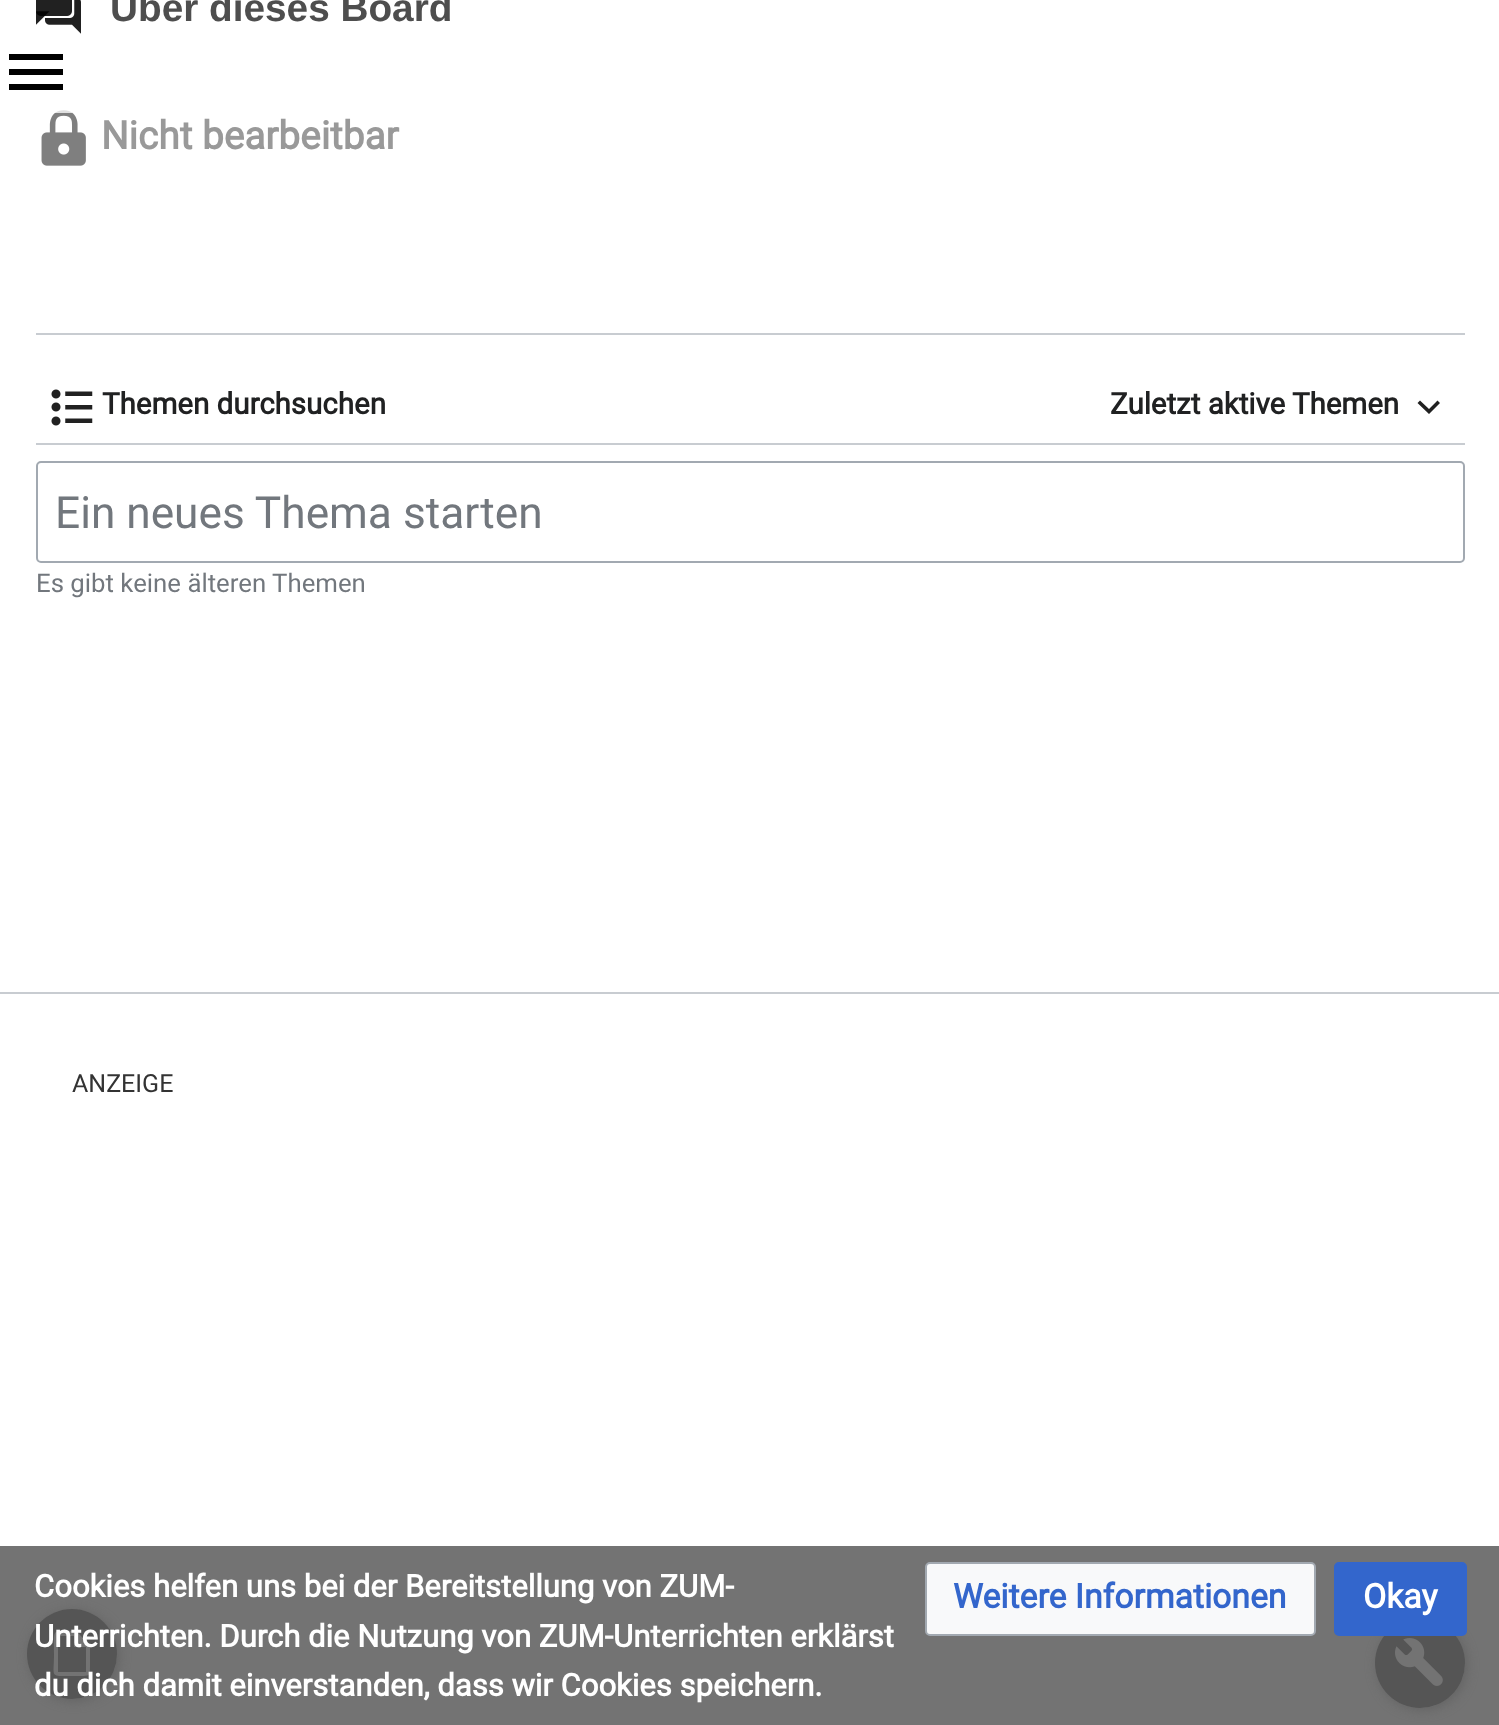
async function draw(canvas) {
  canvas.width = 1499
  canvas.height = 1725
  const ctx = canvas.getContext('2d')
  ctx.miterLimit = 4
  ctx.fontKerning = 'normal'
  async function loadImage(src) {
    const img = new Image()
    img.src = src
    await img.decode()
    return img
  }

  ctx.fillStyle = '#fff'
  ctx.fillRect(0, 0, 1499, 1725)
  ctx.fillStyle = '#737373'
  ctx.fillRect(0, 1546, 1499, 179)
  ctx.fillStyle = '#c8ccd1'
  ctx.fillRect(0, 992, 1499, 2)
  ctx.drawImage(await loadImage('image0.png'), 36, 0, 45, 34)
  ctx.font = 'bold 38.75px Liberation Sans'
  ctx.fillStyle = '#4e4e4e'
  ctx.fillText('Über dieses Board', 110, 21)
  ctx.drawImage(await loadImage('image1.png'), 41, 110, 45, 56)
  ctx.font = 'bold 38.75px Roboto'
  ctx.fillStyle = '#999'
  ctx.fillText('Nicht bearbeitbar', 101, 149)
  ctx.fillStyle = '#c8ccd1'
  ctx.fillRect(36, 333, 1429, 2)
  ctx.fillRect(36, 443, 1429, 2)
  ctx.drawImage(await loadImage('image2.png'), 51, 389, 42, 37)
  ctx.font = 'bold 29.5px Roboto'
  ctx.fillStyle = '#202122'
  ctx.fillText('Themen durchsuchen', 102, 414)
  ctx.fillText('Zuletzt aktive Themen', 1110, 414)
  ctx.fillStyle = '#212121'
  ctx.beginPath()
  ctx.moveTo(1437.5, 400.5)
  ctx.lineTo(1429, 409)
  ctx.lineTo(1420, 400.5)
  ctx.lineTo(1417.5, 403)
  ctx.lineTo(1429, 414)
  ctx.lineTo(1440, 403)
  ctx.closePath()
  ctx.fill()
  ctx.beginPath()
  ctx.roundRect(37, 462, 1427, 100, 4)
  ctx.strokeStyle = '#a2a9b1'
  ctx.lineWidth = 2
  ctx.stroke()
  ctx.font = '44.25px Roboto'
  ctx.fillStyle = '#72777d'
  ctx.fillText('Ein neues Thema starten', 55, 528)
  ctx.font = '25.8px Roboto'
  ctx.fillText('Es gibt keine älteren Themen', 36, 592)
  ctx.save()
  ctx.beginPath()
  ctx.moveTo(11, 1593)
  ctx.lineTo(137, 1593)
  ctx.lineTo(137, 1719)
  ctx.lineTo(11, 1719)
  ctx.closePath()
  ctx.moveTo(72, 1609)
  ctx.bezierCurveTo(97, 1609, 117, 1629, 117, 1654)
  ctx.bezierCurveTo(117, 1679, 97, 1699, 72, 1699)
  ctx.bezierCurveTo(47, 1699, 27, 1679, 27, 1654)
  ctx.bezierCurveTo(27, 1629, 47, 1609, 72, 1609)
  ctx.closePath()
  ctx.clip('evenodd')
  ctx.fillStyle = '#636363'
  ctx.filter = 'blur(5.5px)'
  ctx.beginPath()
  ctx.roundRect(29, 1611, 90, 90, 45)
  ctx.fill()
  ctx.filter = 'none'
  ctx.restore()
  ctx.font = 'bold 31.05px Roboto'
  ctx.fillStyle = '#fff'
  ctx.fillText('Cookies helfen uns bei der Bereitstellung von ZUM-', 34, 1597)
  ctx.fillStyle = '#4d4d4dcc'
  ctx.beginPath()
  ctx.arc(72, 1654, 45, 0, 2 * Math.PI)
  ctx.fill()
  ctx.fillStyle = '#737373'
  ctx.beginPath()
  ctx.moveTo(76, 1631)
  ctx.bezierCurveTo(51, 1631, 54, 1627, 54, 1654)
  ctx.bezierCurveTo(54, 1678, 49, 1676, 72, 1676)
  ctx.lineTo(81, 1676)
  ctx.bezierCurveTo(89, 1676, 90, 1676, 90, 1667)
  ctx.lineTo(90, 1645)
  ctx.closePath()
  ctx.moveTo(86, 1672)
  ctx.lineTo(58, 1672)
  ctx.lineTo(58, 1636)
  ctx.lineTo(74, 1636)
  ctx.lineTo(74, 1647)
  ctx.lineTo(86, 1647)
  ctx.closePath()
  ctx.fill()
  ctx.fillStyle = '#fff'
  ctx.fillText('Unterrichten. Durch die Nutzung von ZUM-Unterrichten erklärst', 34, 1647)
  ctx.fillText('du dich damit einverstanden, dass wir Cookies speichern.', 34, 1696)
  ctx.fillStyle = '#f8f9fa'
  ctx.beginPath()
  ctx.roundRect(926, 1563, 389, 72, 4)
  ctx.fill()
  ctx.stroke()
  ctx.font = 'bold 33.75px Roboto'
  ctx.fillStyle = '#36c'
  ctx.fillText('Weitere Informationen', 953, 1608)
  ctx.save()
  ctx.beginPath()
  ctx.moveTo(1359, 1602)
  ctx.lineTo(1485, 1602)
  ctx.lineTo(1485, 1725)
  ctx.lineTo(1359, 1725)
  ctx.closePath()
  ctx.moveTo(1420, 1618)
  ctx.bezierCurveTo(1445, 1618, 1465, 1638, 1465, 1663)
  ctx.bezierCurveTo(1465, 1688, 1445, 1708, 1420, 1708)
  ctx.bezierCurveTo(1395, 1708, 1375, 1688, 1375, 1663)
  ctx.bezierCurveTo(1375, 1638, 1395, 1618, 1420, 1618)
  ctx.closePath()
  ctx.clip('evenodd')
  ctx.fillStyle = '#636363'
  ctx.filter = 'blur(5.5px)'
  ctx.beginPath()
  ctx.roundRect(1377, 1620, 90, 90, 45)
  ctx.fill()
  ctx.filter = 'none'
  ctx.restore()
  ctx.fillStyle = '#4d4d4dcc'
  ctx.beginPath()
  ctx.arc(1420, 1663, 45, 0, 2 * Math.PI)
  ctx.fill()
  ctx.fillStyle = '#36c'
  ctx.beginPath()
  ctx.roundRect(1335, 1563, 131, 72, 4)
  ctx.fill()
  ctx.strokeStyle = '#36c'
  ctx.stroke()
  ctx.fillStyle = '#fff'
  ctx.fillText('Okay', 1363, 1608)
  ctx.fillStyle = '#ffffffbf'
  ctx.fillRect(55, 110, 17, 3)
  ctx.fillStyle = '#000'
  ctx.beginPath()
  ctx.moveTo(9, 90)
  ctx.lineTo(63, 90)
  ctx.lineTo(63, 84)
  ctx.lineTo(9, 84)
  ctx.closePath()
  ctx.moveTo(9, 75)
  ctx.lineTo(63, 75)
  ctx.lineTo(63, 69)
  ctx.lineTo(9, 69)
  ctx.closePath()
  ctx.moveTo(9, 54)
  ctx.lineTo(9, 60)
  ctx.lineTo(63, 60)
  ctx.lineTo(63, 54)
  ctx.closePath()
  ctx.fill()
  ctx.font = '25px Roboto'
  ctx.fillStyle = '#333'
  ctx.fillText('ANZEIGE', 72, 1092)
  ctx.drawImage(await loadImage('image3.png'), 1395, 1638, 48, 48)
}

draw(document.querySelector('canvas'))
